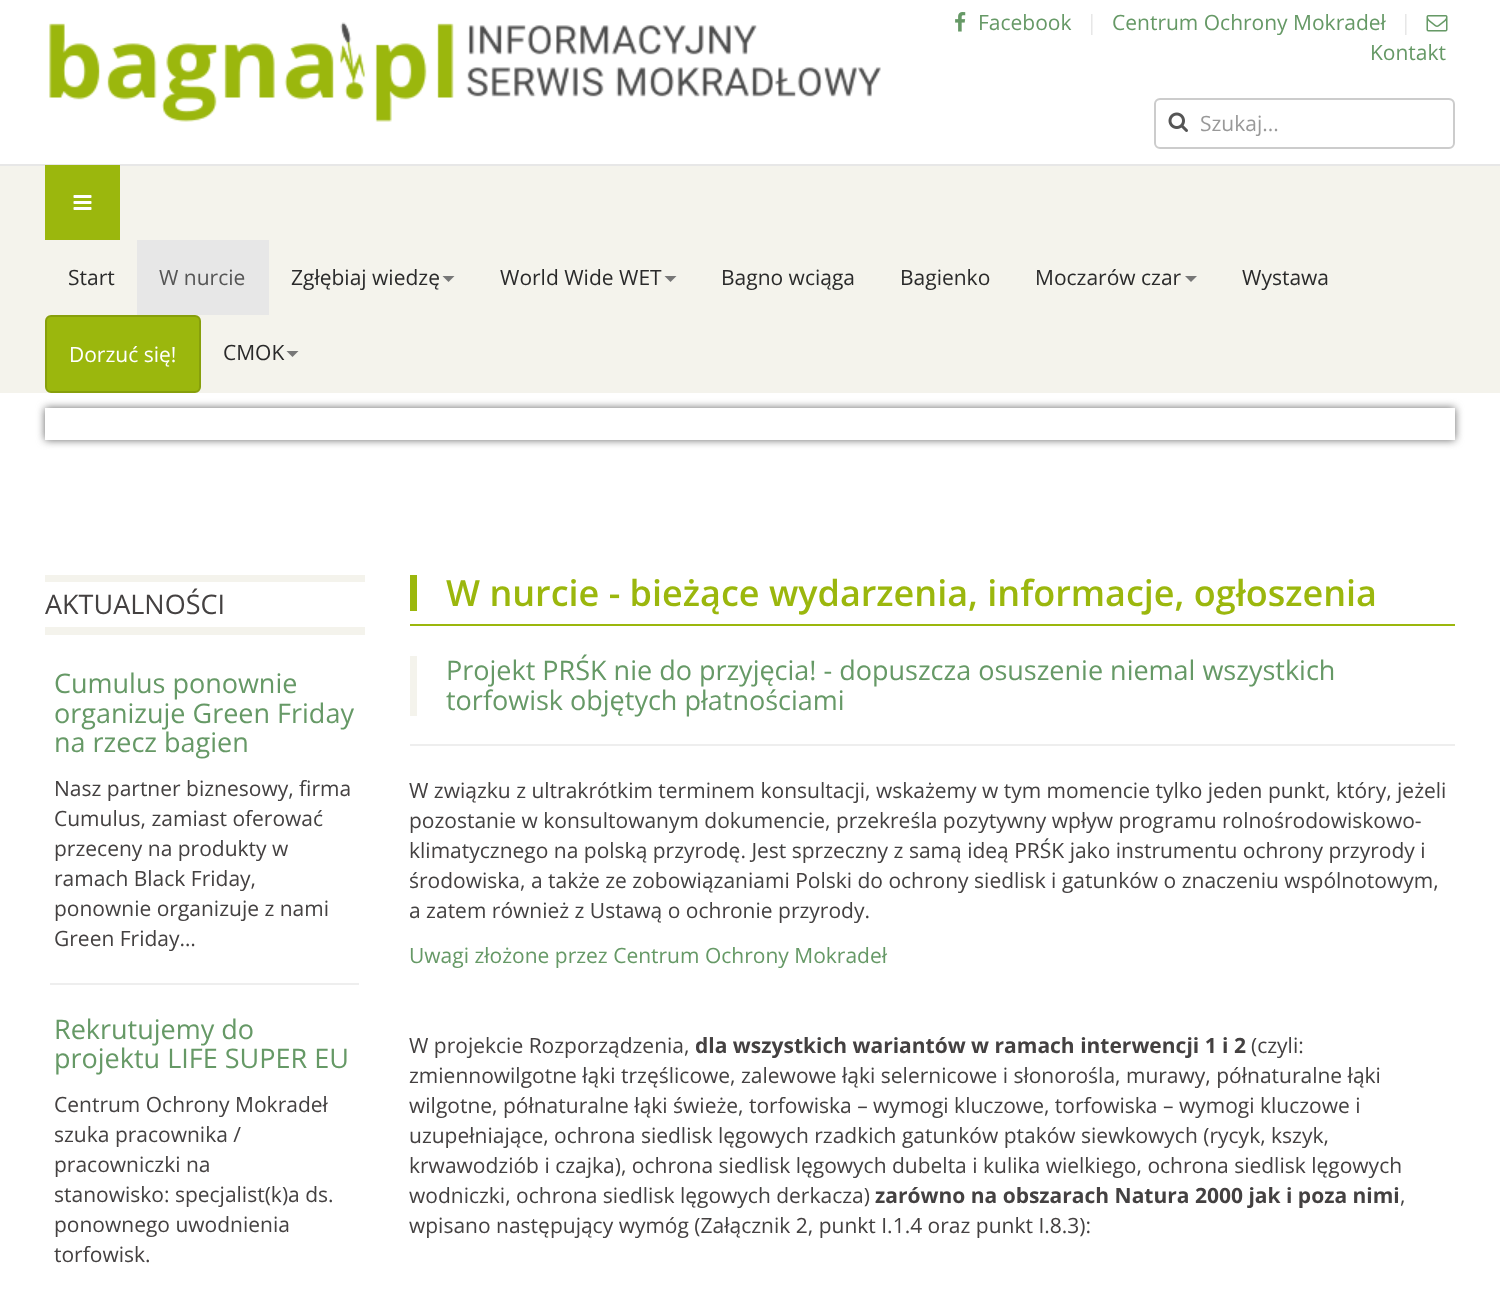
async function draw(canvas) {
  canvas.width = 1500
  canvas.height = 1290
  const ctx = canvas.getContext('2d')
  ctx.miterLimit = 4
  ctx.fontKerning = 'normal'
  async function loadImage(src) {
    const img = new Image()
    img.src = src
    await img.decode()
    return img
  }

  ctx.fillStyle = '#fff'
  ctx.fillRect(0, 0, 1500, 1290)
  ctx.drawImage(await loadImage('image0.png'), 49, 22, 832, 100)
  ctx.drawImage(await loadImage('image1.png'), 955, 12, 11, 20)
  ctx.font = '21px Open Sans'
  ctx.fillStyle = '#696'
  ctx.fillText('Facebook', 978, 30)
  ctx.fillStyle = '#e7e7e7'
  ctx.fillText('|', 1086, 30)
  ctx.fillStyle = '#696'
  ctx.fillText('Centrum Ochrony Mokradeł', 1112, 30)
  ctx.fillStyle = '#e7e7e7'
  ctx.fillText('|', 1400, 30)
  ctx.drawImage(await loadImage('image2.png'), 1426, 15, 22, 17)
  ctx.fillStyle = '#696'
  ctx.fillText('Kontakt', 1370, 60)
  ctx.fillStyle = '#ececec'
  ctx.beginPath()
  ctx.moveTo(1160, 100)
  ctx.lineTo(1449, 100)
  ctx.bezierCurveTo(1451, 100, 1454, 103, 1454, 105)
  ctx.lineTo(1454, 104)
  ctx.bezierCurveTo(1454, 101, 1452, 99, 1449, 99)
  ctx.lineTo(1160, 99)
  ctx.bezierCurveTo(1157, 99, 1155, 101, 1155, 104)
  ctx.lineTo(1155, 105)
  ctx.bezierCurveTo(1155, 103, 1157, 100, 1160, 100)
  ctx.closePath()
  ctx.fill()
  ctx.beginPath()
  ctx.roundRect(1155, 99, 299, 49, 5)
  ctx.strokeStyle = '#ccc'
  ctx.lineWidth = 2
  ctx.stroke()
  ctx.drawImage(await loadImage('image3.png'), 1168, 112, 20, 20)
  ctx.fillStyle = '#999'
  ctx.fillText('Szukaj...', 1200, 131)
  ctx.fillStyle = '#f4f3ec'
  ctx.fillRect(0, 166, 1500, 227)
  ctx.fillStyle = '#e7e7e7'
  ctx.fillRect(0, 164, 1500, 2)
  ctx.fillStyle = '#9bb70d'
  ctx.fillRect(45, 165, 75, 75)
  ctx.drawImage(await loadImage('image4.png'), 73, 195, 19, 15)
  ctx.fillStyle = '#2a2a2a'
  ctx.fillText('Start', 68, 285)
  ctx.fillStyle = '#e7e7e7'
  ctx.fillRect(137, 240, 132, 75)
  ctx.fillStyle = '#555'
  ctx.fillText('W nurcie', 159, 285)
  ctx.fillStyle = '#2a2a2a'
  ctx.fillText('Zgłębiaj wiedzę', 291, 285)
  ctx.fillStyle = '#777'
  ctx.beginPath()
  ctx.moveTo(442.5, 276)
  ctx.lineTo(454.5, 276)
  ctx.lineTo(448.5, 282)
  ctx.closePath()
  ctx.fill()
  ctx.fillStyle = '#2a2a2a'
  ctx.fillText('World Wide WET', 500, 285)
  ctx.fillStyle = '#777'
  ctx.beginPath()
  ctx.moveTo(664.5, 276)
  ctx.lineTo(676.5, 276)
  ctx.lineTo(670.5, 282)
  ctx.closePath()
  ctx.fill()
  ctx.fillStyle = '#2a2a2a'
  ctx.fillText('Bagno wciąga', 721, 285)
  ctx.fillText('Bagienko', 900, 285)
  ctx.fillText('Moczarów czar', 1035, 285)
  ctx.fillStyle = '#777'
  ctx.beginPath()
  ctx.moveTo(1185, 276)
  ctx.lineTo(1197, 276)
  ctx.lineTo(1191, 282)
  ctx.closePath()
  ctx.fill()
  ctx.fillStyle = '#2a2a2a'
  ctx.fillText('Wystawa', 1242, 285)
  ctx.fillStyle = '#9bb70d'
  ctx.beginPath()
  ctx.roundRect(46, 316, 154, 76, 5)
  ctx.fill()
  ctx.strokeStyle = '#879f0b'
  ctx.stroke()
  ctx.fillStyle = '#fff'
  ctx.fillText('Dorzuć się!', 69, 362)
  ctx.fillStyle = '#2a2a2a'
  ctx.fillText('CMOK', 223, 360)
  ctx.fillStyle = '#777'
  ctx.beginPath()
  ctx.moveTo(286.5, 351)
  ctx.lineTo(298.5, 351)
  ctx.lineTo(292.5, 357)
  ctx.closePath()
  ctx.fill()
  ctx.save()
  ctx.beginPath()
  ctx.moveTo(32, 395)
  ctx.lineTo(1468, 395)
  ctx.lineTo(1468, 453)
  ctx.lineTo(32, 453)
  ctx.closePath()
  ctx.moveTo(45, 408)
  ctx.lineTo(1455, 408)
  ctx.lineTo(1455, 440)
  ctx.lineTo(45, 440)
  ctx.closePath()
  ctx.clip('evenodd')
  ctx.fillStyle = '#666'
  ctx.filter = 'blur(4px)'
  ctx.beginPath()
  ctx.rect(45, 408, 1410, 32)
  ctx.fill()
  ctx.filter = 'none'
  ctx.restore()
  ctx.fillStyle = '#f4f3ec'
  ctx.fillRect(45, 575, 320, 7)
  ctx.fillRect(45, 627, 320, 8)
  ctx.font = '27px Open Sans'
  ctx.fillStyle = '#444141'
  ctx.fillText('AKTUALNOŚCI', 45, 614)
  ctx.fillStyle = '#696'
  ctx.fillText('Cumulus ponownie', 54, 693)
  ctx.fillText('organizuje Green Friday', 54, 723)
  ctx.fillText('na rzecz bagien', 54, 752)
  ctx.font = '21px Open Sans'
  ctx.fillStyle = '#444141'
  ctx.fillText('Nasz partner biznesowy, firma', 54, 796)
  ctx.fillText('Cumulus, zamiast oferować', 54, 826)
  ctx.fillText('przeceny na produkty w', 54, 856)
  ctx.fillText('ramach Black Friday,', 54, 886)
  ctx.fillText('ponownie organizuje z nami', 54, 916)
  ctx.fillText('Green Friday…', 54, 946)
  ctx.fillStyle = '#eee'
  ctx.fillRect(50, 983, 309, 2)
  ctx.font = '27px Open Sans'
  ctx.fillStyle = '#696'
  ctx.fillText('Rekrutujemy do', 54, 1039)
  ctx.fillText('projektu LIFE SUPER EU', 54, 1068)
  ctx.font = '21px Open Sans'
  ctx.fillStyle = '#444141'
  ctx.fillText('Centrum Ochrony Mokradeł', 54, 1112)
  ctx.fillText('szuka pracownika /', 54, 1142)
  ctx.fillText('pracowniczki na', 54, 1172)
  ctx.fillText('stanowisko: specjalist(k)a ds.', 54, 1202)
  ctx.fillText('ponownego uwodnienia', 54, 1232)
  ctx.fillText('torfowisk.', 54, 1262)
  ctx.fillStyle = '#9bb70d'
  ctx.fillRect(410, 624, 1045, 2)
  ctx.fillRect(410, 575, 7, 36)
  ctx.font = '600 36px Open Sans'
  ctx.fillText('W nurcie - bieżące wydarzenia, informacje, ogłoszenia', 446, 606)
  ctx.fillStyle = '#eee'
  ctx.fillRect(410, 744, 1045, 2)
  ctx.fillStyle = '#f4f3ec'
  ctx.fillRect(410, 656, 7, 60)
  ctx.font = '27px Open Sans'
  ctx.fillStyle = '#696'
  ctx.fillText('Projekt PRŚK nie do przyjęcia! - dopuszcza osuszenie niemal wszystkich', 446, 680)
  ctx.fillText('torfowisk objętych płatnościami', 446, 710)
  ctx.font = '21px Open Sans'
  ctx.fillStyle = '#444141'
  ctx.fillText('W związku z ultrakrótkim terminem konsultacji, wskażemy w tym momencie tylko jeden punkt, który, jeżeli', 409, 798)
  ctx.fillText('pozostanie w konsultowanym dokumencie, przekreśla pozytywny wpływ programu rolnośrodowiskowo-', 409, 828)
  ctx.fillText('klimatycznego na polską przyrodę. Jest sprzeczny z samą ideą PRŚK jako instrumentu ochrony przyrody i', 409, 858)
  ctx.fillText('środowiska, a także ze zobowiązaniami Polski do ochrony siedlisk i gatunków o znaczeniu wspólnotowym,', 409, 888)
  ctx.fillText('a zatem również z Ustawą o ochronie przyrody.', 409, 918)
  ctx.fillStyle = '#696'
  ctx.fillText('Uwagi złożone przez Centrum Ochrony Mokradeł', 409, 963)
  ctx.fillStyle = '#444141'
  ctx.fillText('W projekcie Rozporządzenia,', 409, 1053)
  ctx.font = 'bold 21px Open Sans'
  ctx.fillText('dla wszystkich wariantów w ramach interwencji 1 i 2', 695, 1053)
  ctx.font = '21px Open Sans'
  ctx.fillText('(czyli:', 1251, 1053)
  ctx.fillText('zmiennowilgotne łąki trzęślicowe, zalewowe łąki selernicowe i słonorośla, murawy, półnaturalne łąki', 409, 1083)
  ctx.fillText('wilgotne, półnaturalne łąki świeże, torfowiska – wymogi kluczowe, torfowiska – wymogi kluczowe i', 409, 1113)
  ctx.fillText('uzupełniające, ochrona siedlisk lęgowych rzadkich gatunków ptaków siewkowych (rycyk, kszyk,', 409, 1143)
  ctx.fillText('krwawodziób i czajka), ochrona siedlisk lęgowych dubelta i kulika wielkiego, ochrona siedlisk lęgowych', 409, 1173)
  ctx.fillText('wodniczki, ochrona siedlisk lęgowych derkacza)', 409, 1203)
  ctx.font = 'bold 21px Open Sans'
  ctx.fillText('zarówno na obszarach Natura 2000 jak i poza nimi', 875, 1203)
  ctx.font = '21px Open Sans'
  ctx.fillText(',', 1400, 1203)
  ctx.fillText('wpisano następujący wymóg (Załącznik 2, punkt I.1.4 oraz punkt I.8.3):', 409, 1233)
}

draw(document.querySelector('canvas'))
